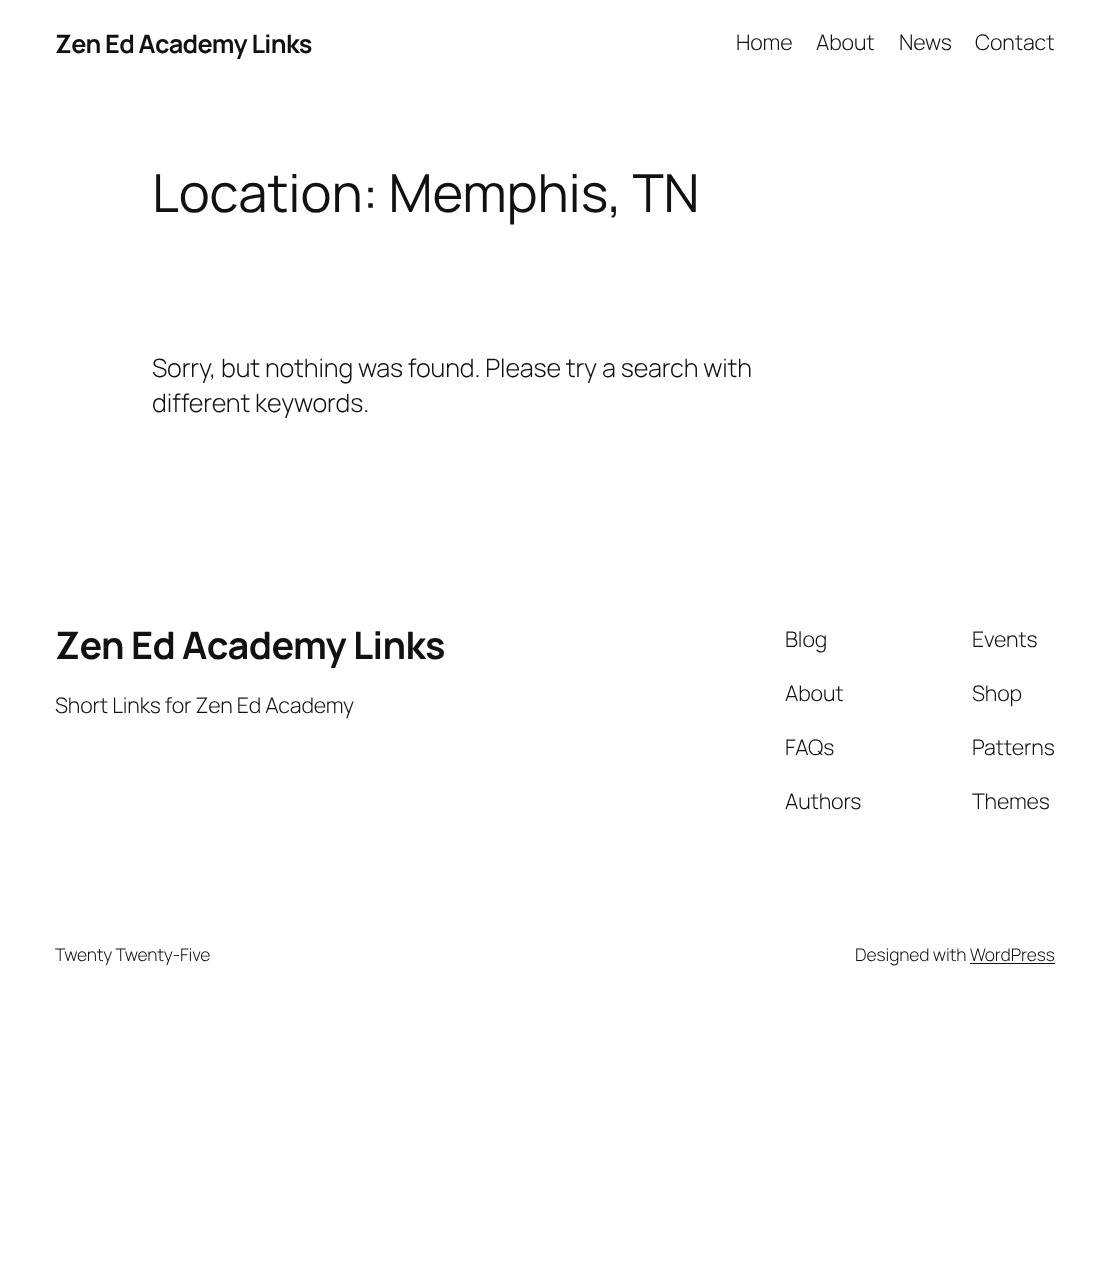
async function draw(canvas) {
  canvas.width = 1109
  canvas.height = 1278
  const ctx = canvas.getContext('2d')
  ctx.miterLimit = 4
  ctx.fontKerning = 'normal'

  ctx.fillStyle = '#fff'
  ctx.fillRect(0, 0, 1109, 1278)
  ctx.letterSpacing = '-0.6px'
  ctx.font = 'bold 25.25px Manrope'
  ctx.fillStyle = '#111'
  ctx.fillText('Zen Ed Academy Links', 55, 53)
  ctx.letterSpacing = '-0.12px'
  ctx.font = '300 21.4px Manrope'
  ctx.fillText('Home', 736, 50)
  ctx.fillText('About', 816, 50)
  ctx.fillText('News', 899, 50)
  ctx.fillText('Contact', 975, 50)
  ctx.font = '52.5px Manrope'
  ctx.fillText('Location: Memphis, TN', 152, 212)
  ctx.font = '300 25.25px Manrope'
  ctx.fillText('Sorry, but nothing was found. Please try a search with', 152, 377)
  ctx.fillText('different keywords.', 152, 412)
  ctx.letterSpacing = '-0.6px'
  ctx.font = 'bold 37.75px Manrope'
  ctx.fillText('Zen Ed Academy Links', 55, 659)
  ctx.letterSpacing = '-0.12px'
  ctx.font = '300 21.4px Manrope'
  ctx.fillText('Short Links for Zen Ed Academy', 55, 713)
  ctx.fillText('Blog', 785, 647)
  ctx.fillText('About', 785, 701)
  ctx.fillText('FAQs', 785, 755)
  ctx.fillText('Authors', 785, 809)
  ctx.fillText('Events', 972, 647)
  ctx.fillText('Shop', 972, 701)
  ctx.fillText('Patterns', 972, 755)
  ctx.fillText('Themes', 972, 809)
  ctx.font = '300 17.5px Manrope'
  ctx.fillText('Twenty Twenty-Five', 55, 961)
  ctx.fillText('Designed with WordPress', 855, 961)
  ctx.fillRect(970, 963, 85, 1)
}

draw(document.querySelector('canvas'))
